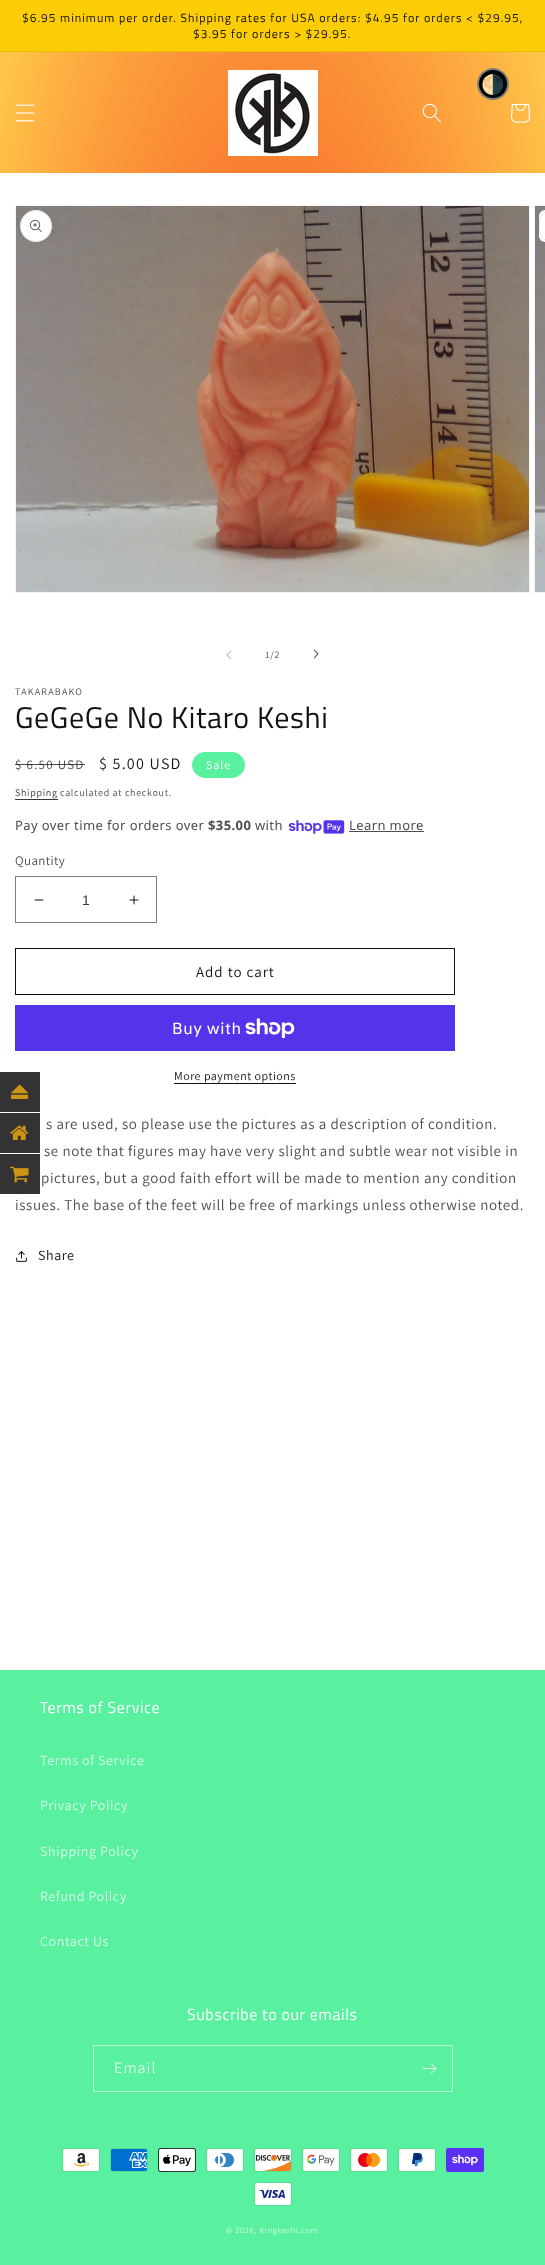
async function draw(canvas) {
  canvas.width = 545
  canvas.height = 2265
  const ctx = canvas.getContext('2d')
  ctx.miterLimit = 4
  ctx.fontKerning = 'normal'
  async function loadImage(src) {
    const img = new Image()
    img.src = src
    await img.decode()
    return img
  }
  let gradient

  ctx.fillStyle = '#fff'
  ctx.fillRect(0, 0, 545, 2265)
  ctx.fillStyle = '#fccc06'
  ctx.fillRect(0, 0, 545, 51)
  ctx.fillStyle = '#e9bd07'
  ctx.fillRect(0, 51, 545, 1)
  ctx.letterSpacing = '1px'
  ctx.font = '12px Titillium Web'
  ctx.fillStyle = '#121212'
  ctx.fillText('$6.95 minimum per order. Shipping rates for USA orders: $4.95 for orders < $29.95,', 22, 22)
  ctx.fillText('$3.95 for orders > $29.95.', 193, 38)
  gradient = ctx.createRadialGradient(273, 272.29, 0, 273, 272.29, 385)
  gradient.addColorStop(0, '#f20b0b')
  gradient.addColorStop(1, '#ffcc4b')
  ctx.fillStyle = gradient
  ctx.beginPath()
  ctx.rect(0, 52, 545, 121)
  ctx.save()
  ctx.clip()
  ctx.scale(1, 1602 / 385)
  ctx.fillRect(0, 0, 545, 545)
  ctx.restore()
  ctx.drawImage(await loadImage('image0.png'), 15, 104, 20, 18)
  ctx.drawImage(await loadImage('image1.png'), 228, 70, 90, 86)
  ctx.drawImage(await loadImage('image2.png'), 422, 103, 19, 20)
  ctx.drawImage(await loadImage('image3.png'), 511, 104, 20, 19)
  ctx.fillStyle = '#000'
  ctx.beginPath()
  ctx.arc(493, 84, 15, 0, 2 * Math.PI)
  ctx.fill()
  ctx.strokeStyle = '#808080'
  ctx.lineWidth = 2
  ctx.stroke()
  ctx.letterSpacing = '0px'
  ctx.font = 'bold 19px Noto Color Emoji'
  ctx.fillStyle = '#fff'
  ctx.fillText('🌗', 481, 91)
  ctx.strokeStyle = '#f3f3f3'
  ctx.lineWidth = 1
  ctx.strokeRect(15.5, 205.5, 514, 387)
  ctx.drawImage(await loadImage('image4.png'), 16, 206, 513, 386)
  ctx.beginPath()
  ctx.arc(36, 226, 16, 0, 2 * Math.PI)
  ctx.fill()
  ctx.beginPath()
  ctx.arc(36, 226, 15.5, 0, 2 * Math.PI)
  ctx.strokeStyle = '#1212121a'
  ctx.stroke()
  ctx.drawImage(await loadImage('image5.png'), 30, 220, 12, 12)
  ctx.strokeStyle = '#f3f3f3'
  ctx.strokeRect(534.5, 205.5, 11, 387)
  ctx.drawImage(await loadImage('image6.png'), 535, 206, 10, 386)
  ctx.beginPath()
  ctx.roundRect(539, 210, 6, 32, [16, 0, 0, 16])
  ctx.fill()
  ctx.beginPath()
  ctx.roundRect(539.5, 210.5, 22, 31, 15.5)
  ctx.strokeStyle = '#1212121a'
  ctx.stroke()
  ctx.drawImage(await loadImage('image7.png'), 226, 650, 6, 10)
  ctx.letterSpacing = '0.7px'
  ctx.font = '10px Assistant'
  ctx.fillStyle = '#4d4d4d'
  ctx.fillText('1/2', 265, 658)
  ctx.drawImage(await loadImage('image8.png'), 313, 649, 6, 10)
  ctx.letterSpacing = '1.25px'
  ctx.fillText('TAKARABAKO', 15, 695)
  ctx.letterSpacing = '0.6px'
  ctx.font = '30px Titillium Web'
  ctx.fillStyle = '#121212'
  ctx.fillText('GeGeGe No Kitaro Keshi', 15, 728)
  ctx.letterSpacing = '1.25px'
  ctx.font = '13px Assistant'
  ctx.fillStyle = '#4d4d4d'
  ctx.fillText('$ 6.50 USD', 15, 769)
  ctx.fillStyle = '#121212bf'
  ctx.fillRect(15, 764, 70, 1)
  ctx.font = '16px Assistant'
  ctx.fillStyle = '#121212'
  ctx.fillText('$ 5.00 USD', 99, 769)
  ctx.fillStyle = '#59f19f'
  ctx.beginPath()
  ctx.roundRect(192.5, 752.5, 52, 25, 12.5)
  ctx.fill()
  ctx.strokeStyle = '#59f19f'
  ctx.stroke()
  ctx.letterSpacing = '1px'
  ctx.font = '12px Assistant'
  ctx.fillStyle = '#fff'
  ctx.fillText('Sale', 206, 769)
  ctx.letterSpacing = '0.7px'
  ctx.font = '10px Assistant'
  ctx.fillStyle = '#363636'
  ctx.fillText('Shipping', 15, 796)
  ctx.fillRect(15, 799, 43, 1)
  ctx.fillStyle = '#4d4d4d'
  ctx.fillText('calculated at checkout.', 60, 796)
  ctx.letterSpacing = '0.4px'
  ctx.font = '13px Noto Sans'
  ctx.fillText('Pay over time for orders over', 15, 830)
  ctx.font = 'bold 13px Noto Sans'
  ctx.fillText('$35.00', 208, 830)
  ctx.font = '13px Noto Sans'
  ctx.fillText('with', 255, 830)
  ctx.drawImage(await loadImage('image9.png'), 288, 820, 57, 14)
  ctx.fillText('Learn more', 349, 830)
  ctx.fillRect(349, 831, 75, 1)
  ctx.font = '13px Assistant'
  ctx.fillText('Quantity', 15, 865)
  ctx.drawImage(await loadImage('image10.png'), 34, 899, 10, 2)
  ctx.drawImage(await loadImage('image11.png'), 129, 895, 10, 10)
  ctx.strokeStyle = '#7d7d7d'
  ctx.strokeRect(15.5, 876.5, 141, 46)
  ctx.letterSpacing = '0px'
  ctx.font = '14px Liberation Sans'
  ctx.fillStyle = '#363636'
  ctx.fillText('1', 82, 905)
  ctx.strokeStyle = '#121212'
  ctx.strokeRect(15.5, 948.5, 439, 46)
  ctx.letterSpacing = '1px'
  ctx.font = '15px Assistant'
  ctx.fillStyle = '#121212'
  ctx.fillText('Add to cart', 196, 977)
  ctx.fillStyle = '#5433eb'
  ctx.fillRect(15, 1005, 440, 46)
  ctx.letterSpacing = '0.6px'
  ctx.font = '16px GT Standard'
  ctx.fillStyle = '#fff'
  ctx.fillText('Buy with', 172, 1034)
  ctx.drawImage(await loadImage('image12.png'), 245, 1018, 50, 20)
  ctx.letterSpacing = '0.5px'
  ctx.font = '12px Assistant'
  ctx.fillStyle = '#121212'
  ctx.fillText('More payment options', 174, 1080)
  ctx.fillRect(174, 1083, 122, 1)
  ctx.letterSpacing = '0.6px'
  ctx.font = '15px Assistant'
  ctx.fillStyle = '#4d4d4d'
  ctx.fillText('s are used, so please use the pictures as a description of condition.', 46, 1129)
  ctx.fillText('se note that figures may have very slight and subtle wear not visible in', 44, 1156)
  ctx.fillText('pictures, but a good faith effort will be made to mention any condition', 41, 1183)
  ctx.fillText('issues. The base of the feet will be free of markings unless otherwise noted.', 15, 1210)
  ctx.drawImage(await loadImage('image13.png'), 16, 1251, 11, 11)
  ctx.font = '14px Assistant'
  ctx.fillStyle = '#121212'
  ctx.fillText('Share', 38, 1260)
  ctx.fillStyle = '#333'
  ctx.fillRect(0, 1072, 40, 40)
  ctx.drawImage(await loadImage('image14.png'), 11, 1084, 18, 15)
  ctx.fillStyle = '#000000cc'
  ctx.fillRect(0, 1113, 40, 40)
  ctx.drawImage(await loadImage('image15.png'), 10, 1125, 19, 15)
  ctx.fillRect(0, 1154, 40, 40)
  ctx.drawImage(await loadImage('image16.png'), 10, 1166, 19, 17)
  ctx.fillStyle = '#59f19f'
  ctx.fillRect(0, 1670, 545, 595)
  ctx.font = '16px Titillium Web'
  ctx.fillStyle = '#fff'
  ctx.fillText('Terms of Service', 40, 1713)
  ctx.font = '14px Assistant'
  ctx.fillStyle = '#d6fce7'
  ctx.fillText('Terms of Service', 40, 1765)
  ctx.fillText('Privacy Policy', 40, 1810)
  ctx.fillText('Shipping Policy', 40, 1856)
  ctx.fillText('Refund Policy', 40, 1901)
  ctx.fillText('Contact Us', 40, 1946)
  ctx.font = '16px Titillium Web'
  ctx.fillStyle = '#fff'
  ctx.fillText('Subscribe to our emails', 187, 2020)
  ctx.strokeStyle = '#b4f9d4'
  ctx.strokeRect(93.5, 2045.5, 359, 46)
  ctx.letterSpacing = '1px'
  ctx.font = '16px Assistant'
  ctx.fillStyle = '#d6fce7'
  ctx.fillText('Email', 114, 2073)
  ctx.drawImage(await loadImage('image17.png'), 422, 2063, 15, 11)
  ctx.fillStyle = '#66f2a7'
  ctx.fillRect(0, 2122, 545, 1)
  ctx.drawImage(await loadImage('image18.png'), 62, 2148, 38, 24)
  ctx.drawImage(await loadImage('image19.png'), 110, 2148, 38, 24)
  ctx.drawImage(await loadImage('image20.png'), 158, 2148, 38, 24)
  ctx.drawImage(await loadImage('image21.png'), 206, 2148, 38, 24)
  ctx.drawImage(await loadImage('image22.png'), 254, 2148, 38, 24)
  ctx.drawImage(await loadImage('image23.png'), 302, 2148, 38, 24)
  ctx.drawImage(await loadImage('image24.png'), 350, 2148, 38, 24)
  ctx.drawImage(await loadImage('image25.png'), 398, 2148, 38, 24)
  ctx.drawImage(await loadImage('image26.png'), 446, 2148, 38, 24)
  ctx.drawImage(await loadImage('image27.png'), 254, 2182, 38, 24)
  ctx.letterSpacing = '0.7px'
  ctx.font = '8.25px Assistant'
  ctx.fillStyle = '#d6fce7'
  ctx.fillText('© 2026, Kingkeshi.com', 226, 2233)
}

draw(document.querySelector('canvas'))
